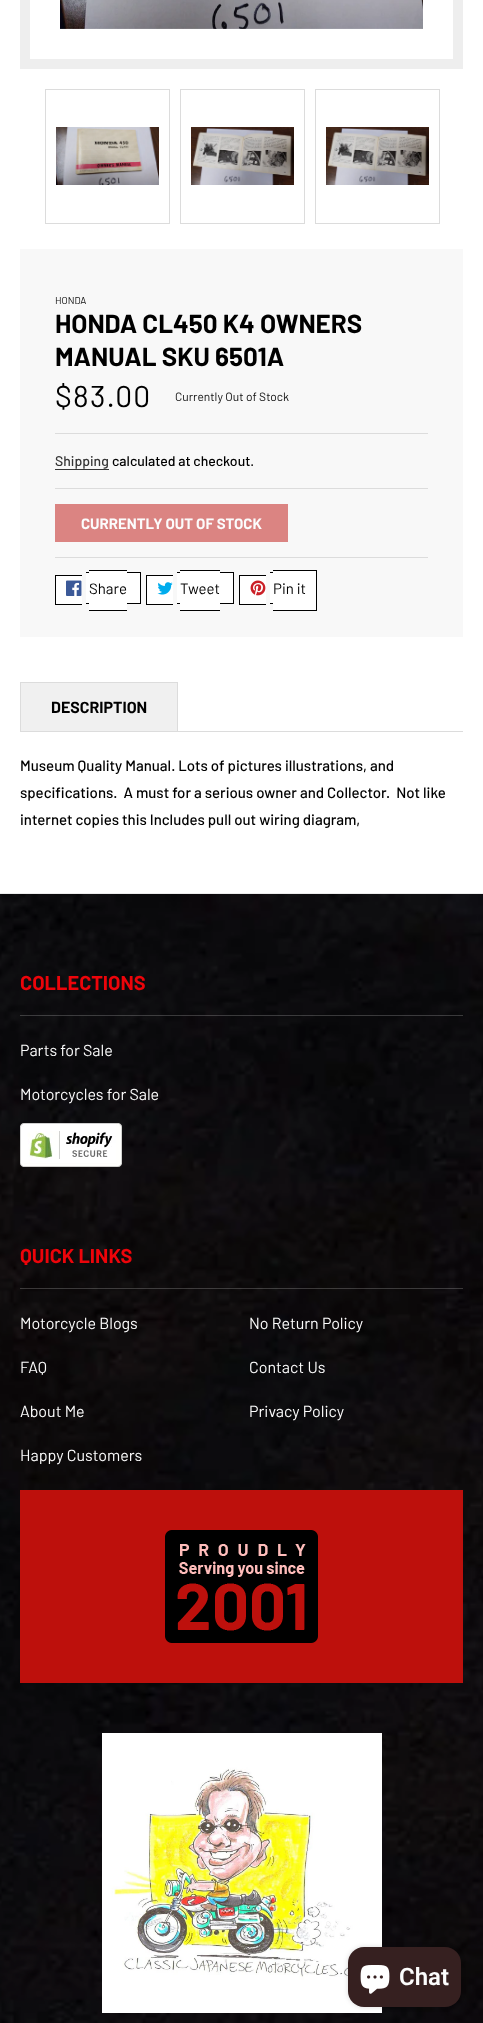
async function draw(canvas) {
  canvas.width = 483
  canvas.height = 2023
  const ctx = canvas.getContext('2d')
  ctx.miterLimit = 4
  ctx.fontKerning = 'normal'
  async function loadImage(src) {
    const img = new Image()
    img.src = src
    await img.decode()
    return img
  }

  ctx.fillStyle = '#fff'
  ctx.fillRect(0, 0, 483, 2023)
  ctx.strokeStyle = '#eee'
  ctx.lineWidth = 10
  ctx.strokeRect(25, -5, 433, 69)
  ctx.drawImage(await loadImage('image0.png'), 60, 0, 363, 29)
  ctx.strokeStyle = '#dcdcdc'
  ctx.lineWidth = 1
  ctx.strokeRect(45.5, 89.5, 124, 134)
  ctx.drawImage(await loadImage('image1.png'), 56, 127, 103, 58)
  ctx.strokeRect(180.5, 89.5, 124, 134)
  ctx.drawImage(await loadImage('image2.png'), 191, 127, 103, 58)
  ctx.strokeRect(315.5, 89.5, 124, 134)
  ctx.drawImage(await loadImage('image2.png'), 326, 127, 103, 58)
  ctx.fillStyle = '#f8f8f8'
  ctx.fillRect(20, 249, 443, 388)
  ctx.font = '10px Barlow'
  ctx.fillStyle = '#121212'
  ctx.fillText('HONDA', 55, 304)
  ctx.font = 'bold 26px Barlow'
  ctx.fillStyle = '#000'
  ctx.fillText('HONDA CL450 K4 OWNERS', 55, 333)
  ctx.fillText('MANUAL SKU 6501A', 55, 366)
  ctx.letterSpacing = '1.25px'
  ctx.font = '30px Barlow'
  ctx.fillText('$83.00', 55, 407)
  ctx.letterSpacing = '0px'
  ctx.font = '12px Barlow'
  ctx.fillStyle = '#121212'
  ctx.fillText('Currently Out of Stock', 175, 401)
  ctx.fillStyle = '#dcdcdc'
  ctx.fillRect(55, 433, 373, 1)
  ctx.font = '500 14px Barlow'
  ctx.fillStyle = '#353535'
  ctx.fillText('Shipping', 55, 466)
  ctx.fillRect(55, 469, 54, 1)
  ctx.fillStyle = '#000'
  ctx.fillText('calculated at checkout.', 112, 466)
  ctx.fillStyle = '#dcdcdc'
  ctx.fillRect(55, 488, 373, 1)
  ctx.fillRect(55, 557, 373, 1)
  ctx.fillStyle = '#db8482'
  ctx.fillRect(55, 504, 233, 38)
  ctx.font = 'bold 15px Barlow'
  ctx.fillStyle = '#fcfcfc'
  ctx.fillText('CURRENTLY OUT OF STOCK', 81, 529)
  ctx.fillStyle = '#fff'
  ctx.fillRect(56, 576, 26, 28)
  ctx.fillStyle = '#000'
  ctx.fillRect(55, 575, 27, 1)
  ctx.fillRect(55, 604, 27, 1)
  ctx.fillRect(55, 575, 1, 30)
  ctx.fillStyle = '#fff'
  ctx.fillRect(86, 572, 3, 32)
  ctx.fillStyle = '#000'
  ctx.fillRect(86, 572, 3, 1)
  ctx.fillRect(86, 603, 3, 1)
  ctx.fillStyle = '#fff'
  ctx.fillRect(89, 571, 38, 39)
  ctx.fillStyle = '#000'
  ctx.fillRect(89, 570, 38, 1)
  ctx.fillRect(89, 610, 38, 1)
  ctx.fillStyle = '#fff'
  ctx.fillRect(127, 573, 13, 30)
  ctx.fillStyle = '#000'
  ctx.fillRect(127, 572, 14, 1)
  ctx.fillRect(140, 572, 1, 32)
  ctx.fillRect(127, 603, 14, 1)
  ctx.drawImage(await loadImage('image3.png'), 66, 580, 16, 16)
  ctx.font = '15px Barlow'
  ctx.fillText('Share', 89, 594)
  ctx.fillStyle = '#fff'
  ctx.fillRect(147, 576, 26, 28)
  ctx.fillStyle = '#000'
  ctx.fillRect(146, 575, 27, 1)
  ctx.fillRect(146, 604, 27, 1)
  ctx.fillRect(146, 575, 1, 30)
  ctx.fillStyle = '#fff'
  ctx.fillRect(177, 572, 3, 32)
  ctx.fillStyle = '#000'
  ctx.fillRect(177, 572, 3, 1)
  ctx.fillRect(177, 603, 3, 1)
  ctx.fillStyle = '#fff'
  ctx.fillRect(180, 571, 40, 39)
  ctx.fillStyle = '#000'
  ctx.fillRect(180, 570, 40, 1)
  ctx.fillRect(180, 610, 40, 1)
  ctx.fillStyle = '#fff'
  ctx.fillRect(220, 573, 13, 30)
  ctx.fillStyle = '#000'
  ctx.fillRect(220, 572, 14, 1)
  ctx.fillRect(233, 572, 1, 32)
  ctx.fillRect(220, 603, 14, 1)
  ctx.drawImage(await loadImage('image4.png'), 157, 582, 16, 13)
  ctx.fillText('Tweet', 180, 594)
  ctx.fillStyle = '#fff'
  ctx.fillRect(240, 576, 26, 28)
  ctx.fillStyle = '#000'
  ctx.fillRect(239, 575, 27, 1)
  ctx.fillRect(239, 604, 27, 1)
  ctx.fillRect(239, 575, 1, 30)
  ctx.fillStyle = '#fff'
  ctx.fillRect(270, 572, 3, 32)
  ctx.fillStyle = '#000'
  ctx.fillRect(270, 572, 3, 1)
  ctx.fillRect(270, 603, 3, 1)
  ctx.fillStyle = '#fff'
  ctx.fillRect(273, 571, 43, 39)
  ctx.fillStyle = '#000'
  ctx.fillRect(273, 570, 44, 1)
  ctx.fillRect(316, 570, 1, 41)
  ctx.fillRect(273, 610, 44, 1)
  ctx.drawImage(await loadImage('image5.png'), 250, 580, 16, 16)
  ctx.fillText('Pin it', 273, 594)
  ctx.fillStyle = '#dcdcdc'
  ctx.fillRect(20, 731, 443, 1)
  ctx.fillStyle = '#f0f0f0'
  ctx.fillRect(21, 683, 156, 48)
  ctx.fillStyle = '#dcdcdc'
  ctx.fillRect(20, 682, 158, 1)
  ctx.fillRect(177, 682, 1, 49)
  ctx.fillRect(20, 682, 1, 49)
  ctx.font = 'bold 16px Barlow'
  ctx.fillStyle = '#000'
  ctx.fillText('DESCRIPTION', 51, 713)
  ctx.font = '500 15px Barlow'
  ctx.fillText('Museum Quality Manual. Lots of pictures illustrations, and', 20, 771)
  ctx.fillText('specifications.  A must for a serious owner and Collector.  Not like', 20, 798)
  ctx.fillText('internet copies this Includes pull out wiring diagram,', 20, 825)
  ctx.drawImage(await loadImage('image6.png'), 0, 894, 483, 1129)
  ctx.fillStyle = '#ececec'
  ctx.fillRect(0, 893, 483, 1)
  ctx.fillStyle = '#ffffff33'
  ctx.fillRect(20, 1015, 443, 1)
  ctx.font = 'bold 20px Barlow'
  ctx.fillStyle = '#ed040a'
  ctx.fillText('COLLECTIONS', 20, 990)
  ctx.font = '16px Barlow'
  ctx.fillStyle = '#fcfcfc'
  ctx.fillText('Parts for Sale', 20, 1056)
  ctx.fillText('Motorcycles for Sale', 20, 1100)
  ctx.drawImage(await loadImage('image7.png'), 20, 1123, 102, 44)
  ctx.fillStyle = '#ffffff33'
  ctx.fillRect(20, 1288, 443, 1)
  ctx.font = 'bold 20px Barlow'
  ctx.fillStyle = '#ed040a'
  ctx.fillText('QUICK LINKS', 20, 1263)
  ctx.font = '16px Barlow'
  ctx.fillStyle = '#fcfcfc'
  ctx.fillText('Motorcycle Blogs', 20, 1329)
  ctx.fillText('No Return Policy', 249, 1329)
  ctx.fillText('FAQ', 20, 1373)
  ctx.fillText('Contact Us', 249, 1373)
  ctx.fillText('About Me', 20, 1417)
  ctx.fillText('Privacy Policy', 249, 1417)
  ctx.fillText('Happy Customers', 20, 1461)
  ctx.fillStyle = '#bd100c'
  ctx.fillRect(20, 1490, 443, 193)
  ctx.drawImage(await loadImage('image8.png'), 165, 1530, 153, 113)
  ctx.drawImage(await loadImage('image9.png'), 102, 1733, 280, 280)
  ctx.fillStyle = '#00000026'
  ctx.filter = 'blur(2.5px)'
  ctx.beginPath()
  ctx.roundRect(348, 1947, 113, 60, 16)
  ctx.fill()
  ctx.filter = 'none'
  ctx.fillStyle = '#362020'
  ctx.beginPath()
  ctx.roundRect(348, 1947, 113, 60, 16)
  ctx.fill()
  ctx.drawImage(await loadImage('image10.png'), 360, 1965, 30, 29)
  ctx.font = '600 24px Roboto'
  ctx.fillStyle = '#fcfcfc'
  ctx.fillText('Chat', 399, 1985)
}

draw(document.querySelector('canvas'))
